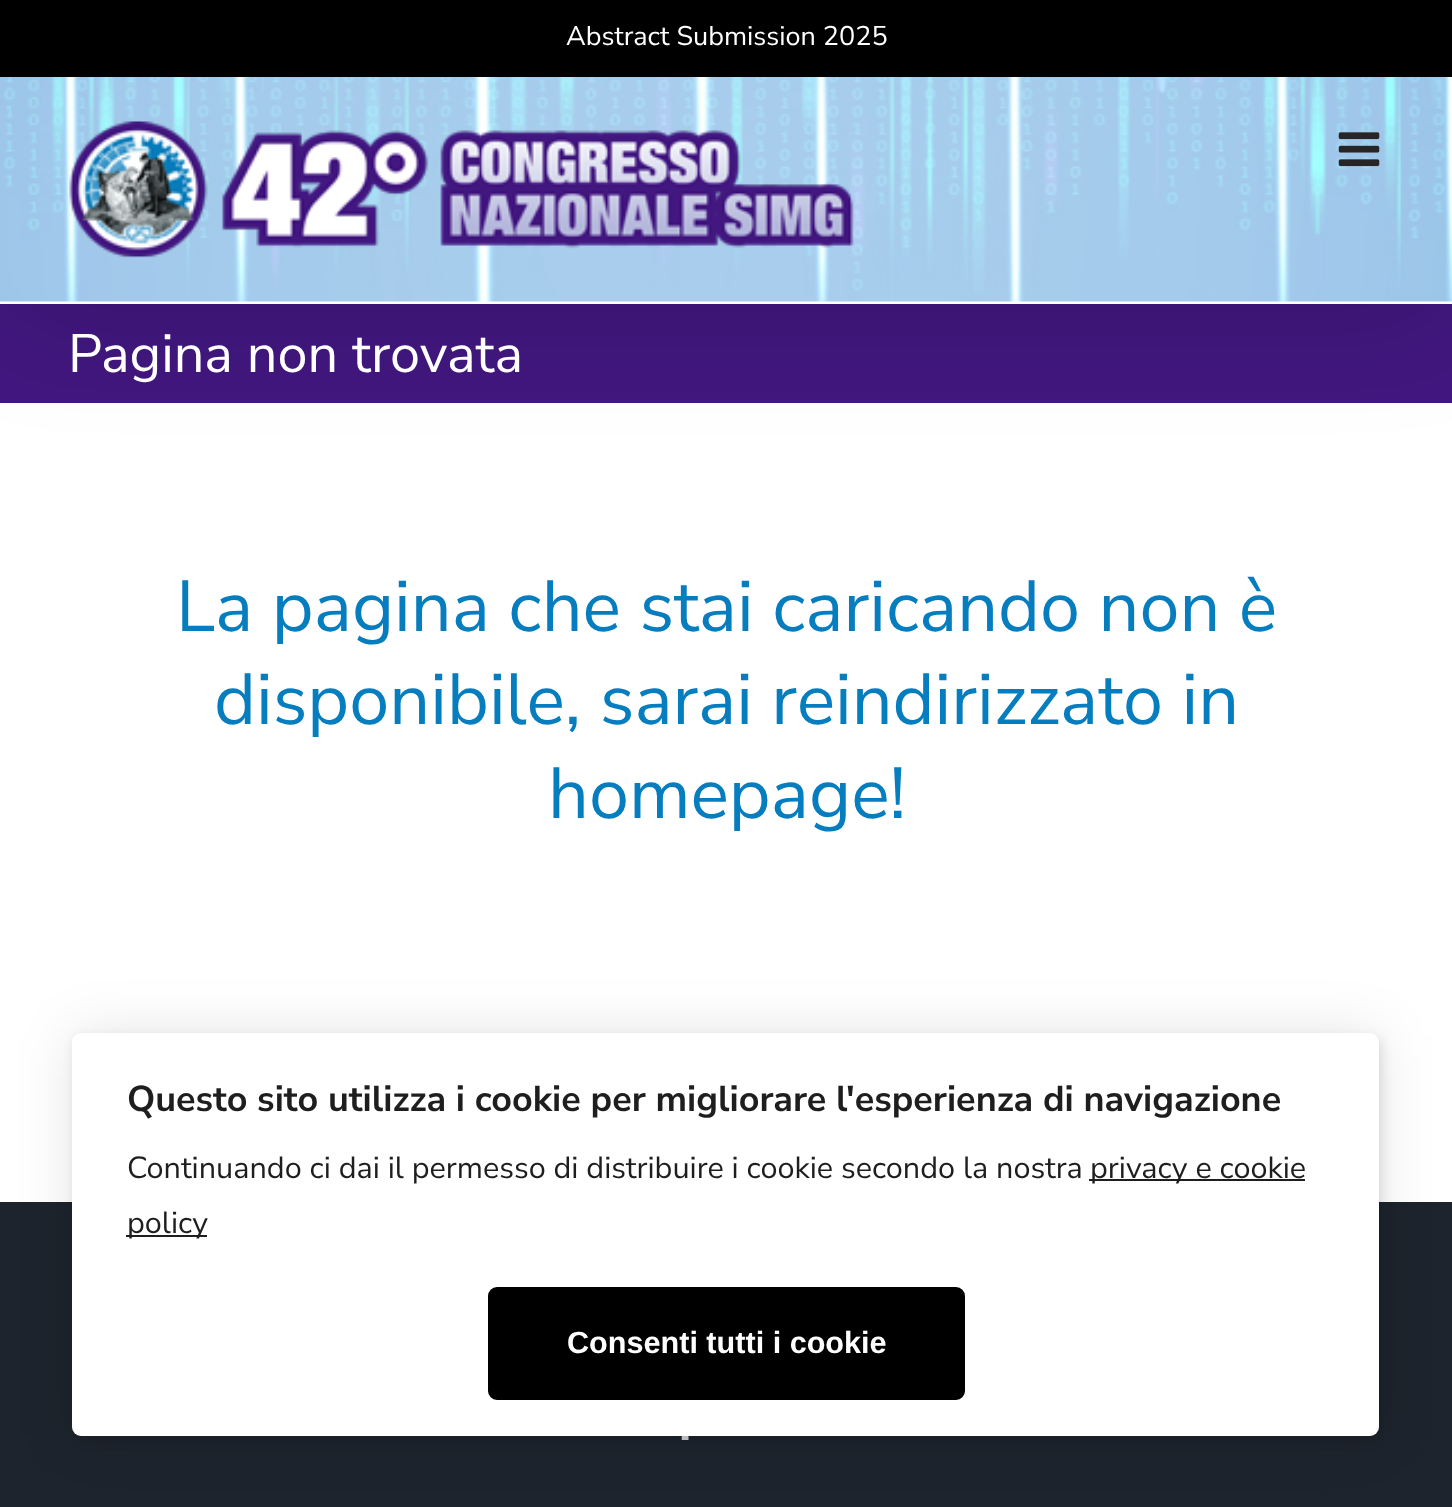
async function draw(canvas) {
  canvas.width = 1452
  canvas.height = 1507
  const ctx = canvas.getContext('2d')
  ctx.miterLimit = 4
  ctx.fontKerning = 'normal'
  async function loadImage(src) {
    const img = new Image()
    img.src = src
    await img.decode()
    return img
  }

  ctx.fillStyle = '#fff'
  ctx.fillRect(0, 0, 1452, 1507)
  ctx.fillStyle = '#42177f'
  ctx.fillRect(0, 304, 1452, 99)
  ctx.fillStyle = '#00000024'
  ctx.filter = 'blur(56px)'
  ctx.beginPath()
  ctx.rect(5, 27, 1444, 295)
  ctx.fill()
  ctx.filter = 'none'
  ctx.fillStyle = '#000'
  ctx.fillRect(0, 0, 1452, 77)
  ctx.font = '27px Nunito Sans'
  ctx.fillStyle = '#fff'
  ctx.fillText('Abstract Submission 2025', 566, 45)
  ctx.fillRect(0, 301, 1452, 3)
  ctx.drawImage(await loadImage('image0.png'), 0, 77, 1452, 225)
  ctx.drawImage(await loadImage('image1.png'), 69, 121, 785, 137)
  ctx.drawImage(await loadImage('image2.png'), 1338, 132, 42, 35)
  ctx.font = '54px Nunito Sans'
  ctx.fillText('Pagina non trovata', 68, 372)
  ctx.font = '72px Nunito Sans'
  ctx.fillStyle = '#067dbe'
  ctx.fillText('La pagina che stai caricando non è', 176, 631)
  ctx.fillText('disponibile, sarai reindirizzato in', 214, 724)
  ctx.fillText('homepage!', 548, 818)
  ctx.fillStyle = '#1d242d'
  ctx.fillRect(0, 1202, 1452, 305)
  ctx.drawImage(await loadImage('image3.png'), 681, 1436, 8, 4)
  ctx.fillStyle = '#0000001a'
  ctx.filter = 'blur(5.5px)'
  ctx.beginPath()
  ctx.roundRect(74, 1037, 1308, 403, 9)
  ctx.fill()
  ctx.filter = 'none'
  ctx.filter = 'blur(28px)'
  ctx.beginPath()
  ctx.roundRect(72, 1033, 1307, 403, 9)
  ctx.fill()
  ctx.filter = 'none'
  ctx.fillStyle = '#fff'
  ctx.beginPath()
  ctx.roundRect(72, 1033, 1307, 403, 9)
  ctx.fill()
  ctx.font = 'bold 36px Nunito Sans'
  ctx.fillStyle = '#1e1e1e'
  ctx.fillText('Questo sito utilizza i cookie per migliorare l\'esperienza di navigazione', 127, 1111)
  ctx.font = '30.6px Nunito Sans'
  ctx.fillText('Continuando ci dai il permesso di distribuire i cookie secondo la nostra', 127, 1178)
  ctx.fillRect(1089, 1179, 216, 2)
  ctx.fillText('privacy e cookie', 1090, 1178)
  ctx.fillRect(126, 1235, 81, 2)
  ctx.fillText('policy', 127, 1233)
  ctx.fillStyle = '#000'
  ctx.beginPath()
  ctx.roundRect(489, 1288, 475, 111, 8)
  ctx.fill()
  ctx.strokeStyle = '#000'
  ctx.lineWidth = 2
  ctx.stroke()
  ctx.font = 'bold 30.6px Liberation Sans'
  ctx.fillStyle = '#fff'
  ctx.fillText('Consenti tutti i cookie', 567, 1353)
}

draw(document.querySelector('canvas'))
